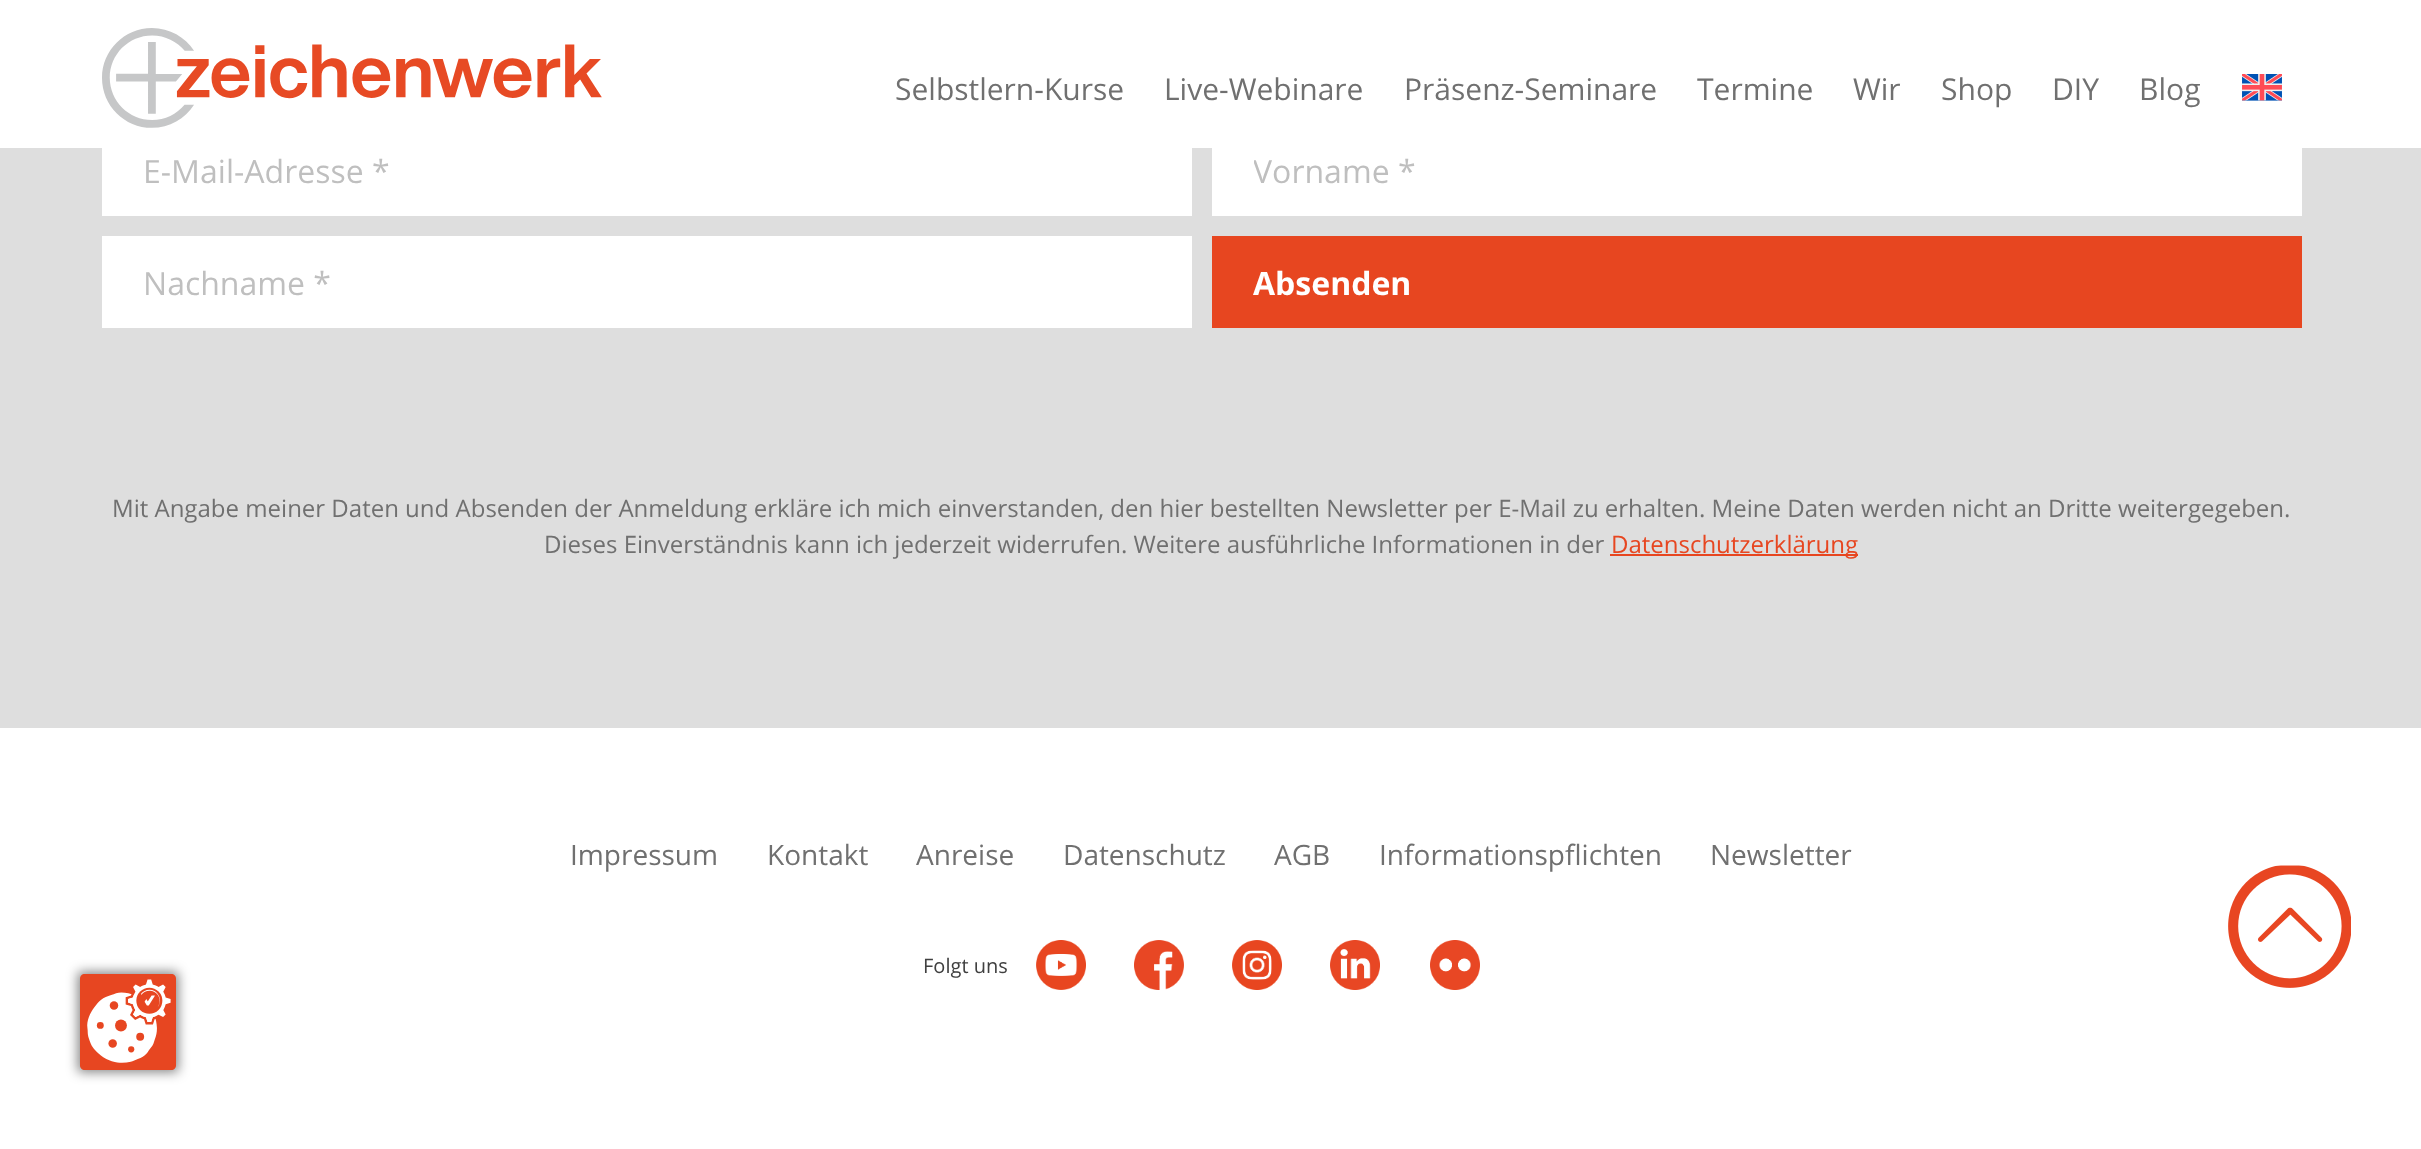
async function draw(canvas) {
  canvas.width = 2421
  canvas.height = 1149
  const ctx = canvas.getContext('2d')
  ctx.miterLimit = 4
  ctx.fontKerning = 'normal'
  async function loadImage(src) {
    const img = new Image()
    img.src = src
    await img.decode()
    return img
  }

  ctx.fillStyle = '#fff'
  ctx.fillRect(0, 0, 2421, 1149)
  ctx.drawImage(await loadImage('image0.png'), 102, 28, 500, 100)
  ctx.font = '30px Open Sans'
  ctx.fillStyle = '#707070'
  ctx.fillText('Selbstlern-Kurse', 895, 100)
  ctx.fillText('Live-Webinare', 1164, 100)
  ctx.fillText('Präsenz-Seminare', 1404, 100)
  ctx.fillText('Termine', 1697, 100)
  ctx.fillText('Wir', 1853, 100)
  ctx.fillText('Shop', 1941, 100)
  ctx.fillText('DIY', 2052, 100)
  ctx.fillText('Blog', 2139, 100)
  ctx.drawImage(await loadImage('image1.png'), 2242, 74, 40, 27)
  ctx.fillStyle = '#dedede'
  ctx.fillRect(0, 148, 2421, 580)
  ctx.fillStyle = '#fff'
  ctx.fillRect(102, 148, 1090, 68)
  ctx.font = '32px Open Sans'
  ctx.fillStyle = '#bfbfbf'
  ctx.fillText('E-Mail-Adresse *', 143, 183)
  ctx.fillStyle = '#fff'
  ctx.fillRect(1212, 148, 1090, 68)
  ctx.save()
  ctx.beginPath()
  ctx.rect(1254, 148, 926, 44)
  ctx.clip()
  ctx.fillStyle = '#bfbfbf'
  ctx.fillText('Vorname *', 1253, 183)
  ctx.restore()
  ctx.fillRect(102, 236, 1090, 92)
  ctx.fillStyle = '#bfbfbf'
  ctx.fillText('Nachname *', 143, 295)
  ctx.fillStyle = '#e74620'
  ctx.fillRect(1212, 236, 1090, 92)
  ctx.font = 'bold 32px Open Sans'
  ctx.fillStyle = '#fff'
  ctx.fillText('Absenden', 1253, 295)
  ctx.font = '24px Open Sans'
  ctx.fillStyle = '#707070'
  ctx.fillText('Mit Angabe meiner Daten und Absenden der Anmeldung erkläre ich mich einverstanden, den hier bestellten Newsletter per E-Mail zu erhalten. Meine Daten werden nicht an Dritte weitergegeben.', 112, 517)
  ctx.fillText('Dieses Einverständnis kann ich jederzeit widerrufen. Weitere ausführliche Informationen in der', 544, 553)
  ctx.fillStyle = '#e74620'
  ctx.fillRect(1610, 554, 248, 2)
  ctx.fillText('Datenschutzerklärung', 1611, 553)
  ctx.font = '28px Open Sans'
  ctx.fillStyle = '#707070'
  ctx.fillText('Impressum', 570, 865)
  ctx.fillText('Kontakt', 767, 865)
  ctx.fillText('Anreise', 916, 865)
  ctx.fillText('Datenschutz', 1063, 865)
  ctx.fillText('AGB', 1274, 865)
  ctx.fillText('Informationspflichten', 1379, 865)
  ctx.fillText('Newsletter', 1710, 865)
  ctx.font = '20px Open Sans'
  ctx.fillStyle = '#404040'
  ctx.fillText('Folgt uns', 923, 973)
  ctx.drawImage(await loadImage('image2.png'), 1036, 940, 50, 50)
  ctx.drawImage(await loadImage('image3.png'), 1134, 940, 50, 50)
  ctx.drawImage(await loadImage('image4.png'), 1232, 940, 50, 50)
  ctx.drawImage(await loadImage('image5.png'), 1330, 940, 50, 50)
  ctx.drawImage(await loadImage('image6.png'), 1430, 940, 50, 50)
  ctx.drawImage(await loadImage('image7.png'), 2228, 865, 123, 123)
  ctx.fillStyle = '#00000080'
  ctx.filter = 'blur(6px)'
  ctx.beginPath()
  ctx.rect(78, 972, 100, 100)
  ctx.fill()
  ctx.filter = 'none'
  ctx.drawImage(await loadImage('image8.png'), 80, 974, 96, 96)
}

draw(document.querySelector('canvas'))
